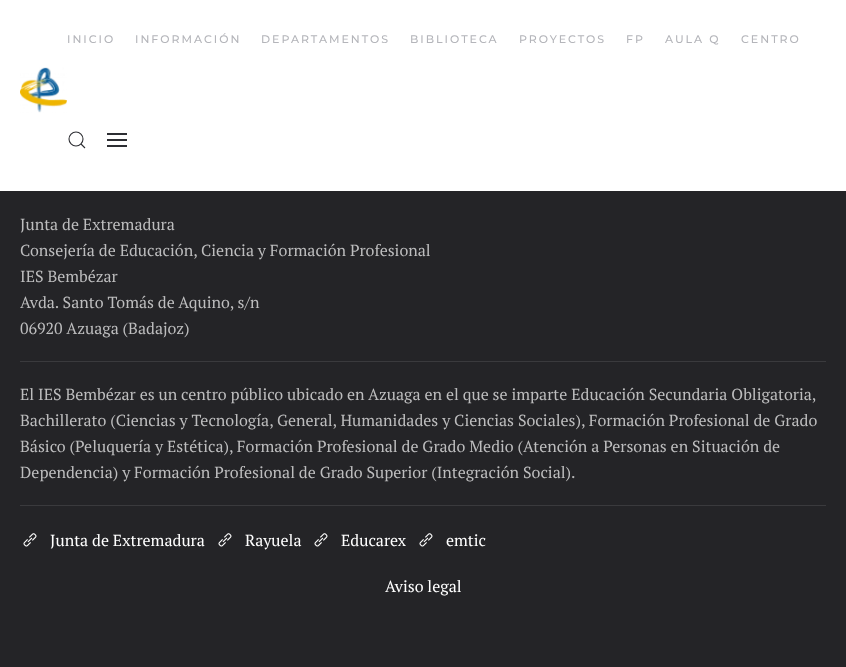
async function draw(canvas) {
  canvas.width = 846
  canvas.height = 667
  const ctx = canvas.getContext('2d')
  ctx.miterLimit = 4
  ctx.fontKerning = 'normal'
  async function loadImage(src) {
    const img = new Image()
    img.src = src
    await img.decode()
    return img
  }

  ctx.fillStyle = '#fff'
  ctx.fillRect(0, 0, 846, 667)
  ctx.letterSpacing = '2px'
  ctx.font = '100 11px Montserrat'
  ctx.fillStyle = '#b4b5ba'
  ctx.fillText('INICIO', 67, 43)
  ctx.fillText('INFORMACIÓN', 135, 43)
  ctx.fillText('DEPARTAMENTOS', 261, 43)
  ctx.fillText('BIBLIOTECA', 410, 43)
  ctx.fillText('PROYECTOS', 519, 43)
  ctx.fillText('FP', 626, 43)
  ctx.fillText('AULA Q', 665, 43)
  ctx.fillText('CENTRO', 741, 43)
  ctx.beginPath()
  ctx.arc(76, 139, 7, 0, 2 * Math.PI)
  ctx.strokeStyle = '#2d2e33'
  ctx.lineWidth = 1.1
  ctx.stroke()
  ctx.beginPath()
  ctx.moveTo(81, 144)
  ctx.lineTo(85, 148)
  ctx.closePath()
  ctx.stroke()
  ctx.fillStyle = '#2d2e33'
  ctx.fillRect(107, 133, 20, 2)
  ctx.fillRect(107, 139, 20, 2)
  ctx.fillRect(107, 145, 20, 2)
  ctx.drawImage(await loadImage('image0.png'), 20, 67, 47, 46)
  ctx.fillStyle = '#242427'
  ctx.fillRect(0, 191, 846, 476)
  ctx.letterSpacing = '0px'
  ctx.font = '16px PT Serif'
  ctx.fillStyle = '#bdbdbe'
  ctx.fillText('Junta de Extremadura', 20, 230)
  ctx.fillText('Consejería de Educación, Ciencia y Formación Profesional', 20, 256)
  ctx.fillText('IES Bembézar', 20, 282)
  ctx.fillText('Avda. Santo Tomás de Aquino, s/n', 20, 308)
  ctx.fillText('06920 Azuaga (Badajoz)', 20, 334)
  ctx.fillStyle = '#3a3a3d'
  ctx.fillRect(20, 361, 806, 1)
  ctx.fillStyle = '#bdbdbe'
  ctx.fillText('El IES Bembézar es un centro público ubicado en Azuaga en el que se imparte Educación Secundaria Obligatoria,', 20, 400)
  ctx.fillText('Bachillerato (Ciencias y Tecnología, General, Humanidades y Ciencias Sociales), Formación Profesional de Grado', 20, 426)
  ctx.fillText('Básico (Peluquería y Estética), Formación Profesional de Grado Medio (Atención a Personas en Situación de', 20, 452)
  ctx.fillText('Dependencia) y Formación Profesional de Grado Superior (Integración Social).', 20, 478)
  ctx.fillStyle = '#3a3a3d'
  ctx.fillRect(20, 505, 806, 1)
  ctx.drawImage(await loadImage('image1.png'), 23, 533, 14, 14)
  ctx.fillStyle = '#fff'
  ctx.fillText('Junta de Extremadura', 50, 546)
  ctx.drawImage(await loadImage('image1.png'), 218, 533, 14, 14)
  ctx.fillText('Rayuela', 245, 546)
  ctx.drawImage(await loadImage('image1.png'), 314, 533, 14, 14)
  ctx.fillText('Educarex', 341, 546)
  ctx.drawImage(await loadImage('image1.png'), 419, 533, 14, 14)
  ctx.fillText('emtic', 446, 546)
  ctx.fillText('Aviso legal', 385, 592)
}

draw(document.querySelector('canvas'))
